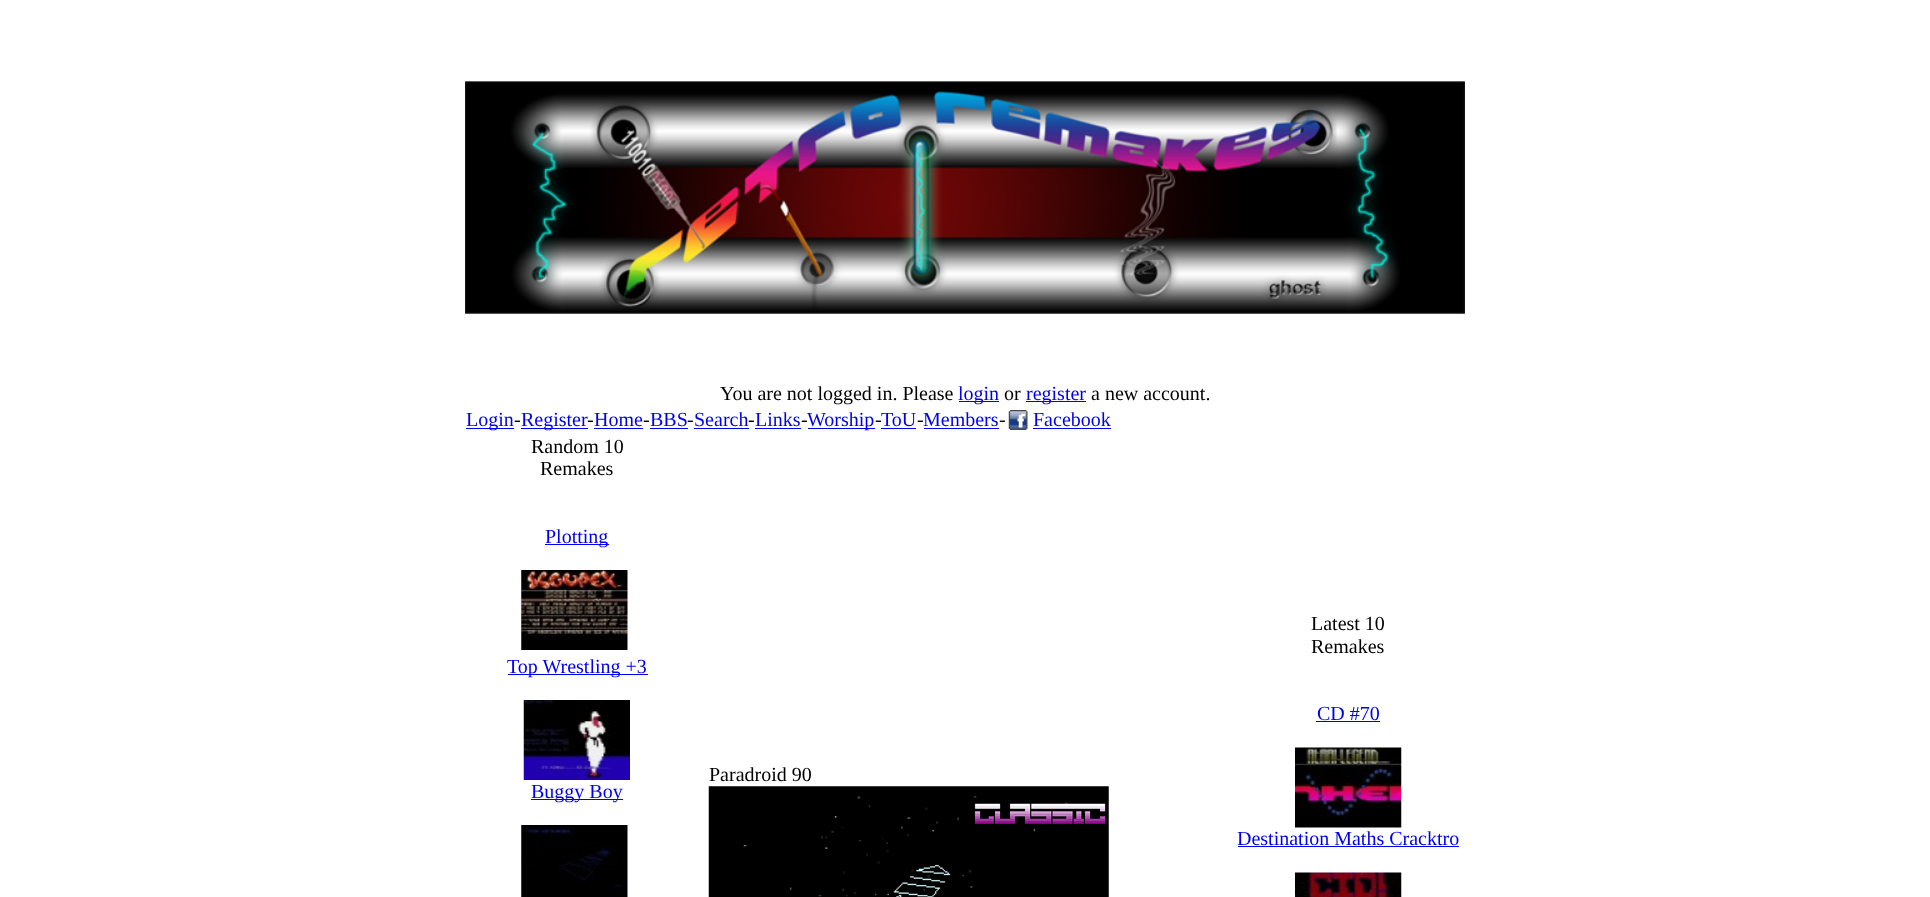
async function draw(canvas) {
  canvas.width = 1930
  canvas.height = 897
  const ctx = canvas.getContext('2d')
  ctx.miterLimit = 4
  ctx.fontKerning = 'normal'
  async function loadImage(src) {
    const img = new Image()
    img.src = src
    await img.decode()
    return img
  }

  ctx.fillStyle = '#fff'
  ctx.fillRect(0, 0, 1930, 897)
  ctx.drawImage(await loadImage('image0.png'), 465, 81, 1000, 233)
  ctx.font = '20px Liberation Serif'
  ctx.fillStyle = '#000'
  ctx.fillText('You are not logged in. Please', 720, 400)
  ctx.fillStyle = '#00e'
  ctx.fillRect(959, 401, 40, 1)
  ctx.fillText('login', 958, 400)
  ctx.fillStyle = '#000'
  ctx.fillText('or', 1004, 400)
  ctx.fillStyle = '#00e'
  ctx.fillRect(1026, 401, 60, 1)
  ctx.fillText('register', 1026, 400)
  ctx.fillStyle = '#000'
  ctx.fillText('a new account.', 1091, 400)
  ctx.fillStyle = '#00e'
  ctx.fillRect(466, 428, 48, 1)
  ctx.fillText('Login', 466, 426)
  ctx.fillStyle = '#000'
  ctx.fillText('-', 514, 426)
  ctx.fillStyle = '#00e'
  ctx.fillRect(521, 428, 67, 1)
  ctx.fillText('Register', 521, 426)
  ctx.fillStyle = '#000'
  ctx.fillText('-', 587, 426)
  ctx.fillStyle = '#00e'
  ctx.fillText('Home', 594, 426)
  ctx.fillRect(594, 428, 49, 1)
  ctx.fillStyle = '#000'
  ctx.fillText('-', 643, 426)
  ctx.fillStyle = '#00e'
  ctx.fillText('BBS', 650, 426)
  ctx.fillRect(650, 428, 38, 1)
  ctx.fillStyle = '#000'
  ctx.fillText('-', 687, 426)
  ctx.fillStyle = '#00e'
  ctx.fillText('Search', 694, 426)
  ctx.fillRect(694, 428, 55, 1)
  ctx.fillStyle = '#000'
  ctx.fillText('-', 748, 426)
  ctx.fillStyle = '#00e'
  ctx.fillText('Links', 755, 426)
  ctx.fillRect(755, 428, 46, 1)
  ctx.fillStyle = '#000'
  ctx.fillText('-', 801, 426)
  ctx.fillStyle = '#00e'
  ctx.fillRect(808, 428, 67, 1)
  ctx.fillText('Worship', 807, 426)
  ctx.fillStyle = '#000'
  ctx.fillText('-', 875, 426)
  ctx.fillStyle = '#00e'
  ctx.fillText('ToU', 881, 426)
  ctx.fillRect(881, 428, 35, 1)
  ctx.fillStyle = '#000'
  ctx.fillText('-', 917, 426)
  ctx.fillStyle = '#00e'
  ctx.fillText('Members', 923, 426)
  ctx.fillRect(924, 428, 75, 1)
  ctx.fillStyle = '#000'
  ctx.fillText('-', 999, 426)
  ctx.drawImage(await loadImage('image1.png'), 1008, 410, 20, 20)
  ctx.fillStyle = '#00e'
  ctx.fillText('Facebook', 1033, 426)
  ctx.fillRect(1033, 428, 78, 1)
  ctx.fillStyle = '#000'
  ctx.fillText('Random 10', 531, 453)
  ctx.fillText('Remakes', 540, 475)
  ctx.fillStyle = '#00e'
  ctx.fillRect(545, 544, 64, 1)
  ctx.fillText('Plotting', 545, 543)
  ctx.drawImage(await loadImage('image2.png'), 521, 570, 107, 80)
  ctx.fillRect(508, 674, 140, 1)
  ctx.fillText('Top Wrestling +3', 507, 673)
  ctx.drawImage(await loadImage('image3.png'), 523, 700, 107, 80)
  ctx.fillRect(531, 799, 92, 1)
  ctx.fillText('Buggy Boy', 531, 798)
  ctx.drawImage(await loadImage('image4.png'), 521, 825, 107, 72)
  ctx.fillStyle = '#000'
  ctx.fillText('Paradroid 90', 709, 781)
  ctx.drawImage(await loadImage('image5.png'), 708, 786, 401, 111)
  ctx.fillText('Latest 10', 1311, 630)
  ctx.fillText('Remakes', 1311, 653)
  ctx.fillStyle = '#00e'
  ctx.fillText('CD #70', 1317, 720)
  ctx.fillRect(1316, 721, 64, 1)
  ctx.drawImage(await loadImage('image6.png'), 1295, 747, 107, 81)
  ctx.fillText('Destination Maths Cracktro', 1237, 845)
  ctx.fillRect(1238, 846, 221, 1)
  ctx.drawImage(await loadImage('image7.png'), 1295, 872, 107, 25)
}

draw(document.querySelector('canvas'))
